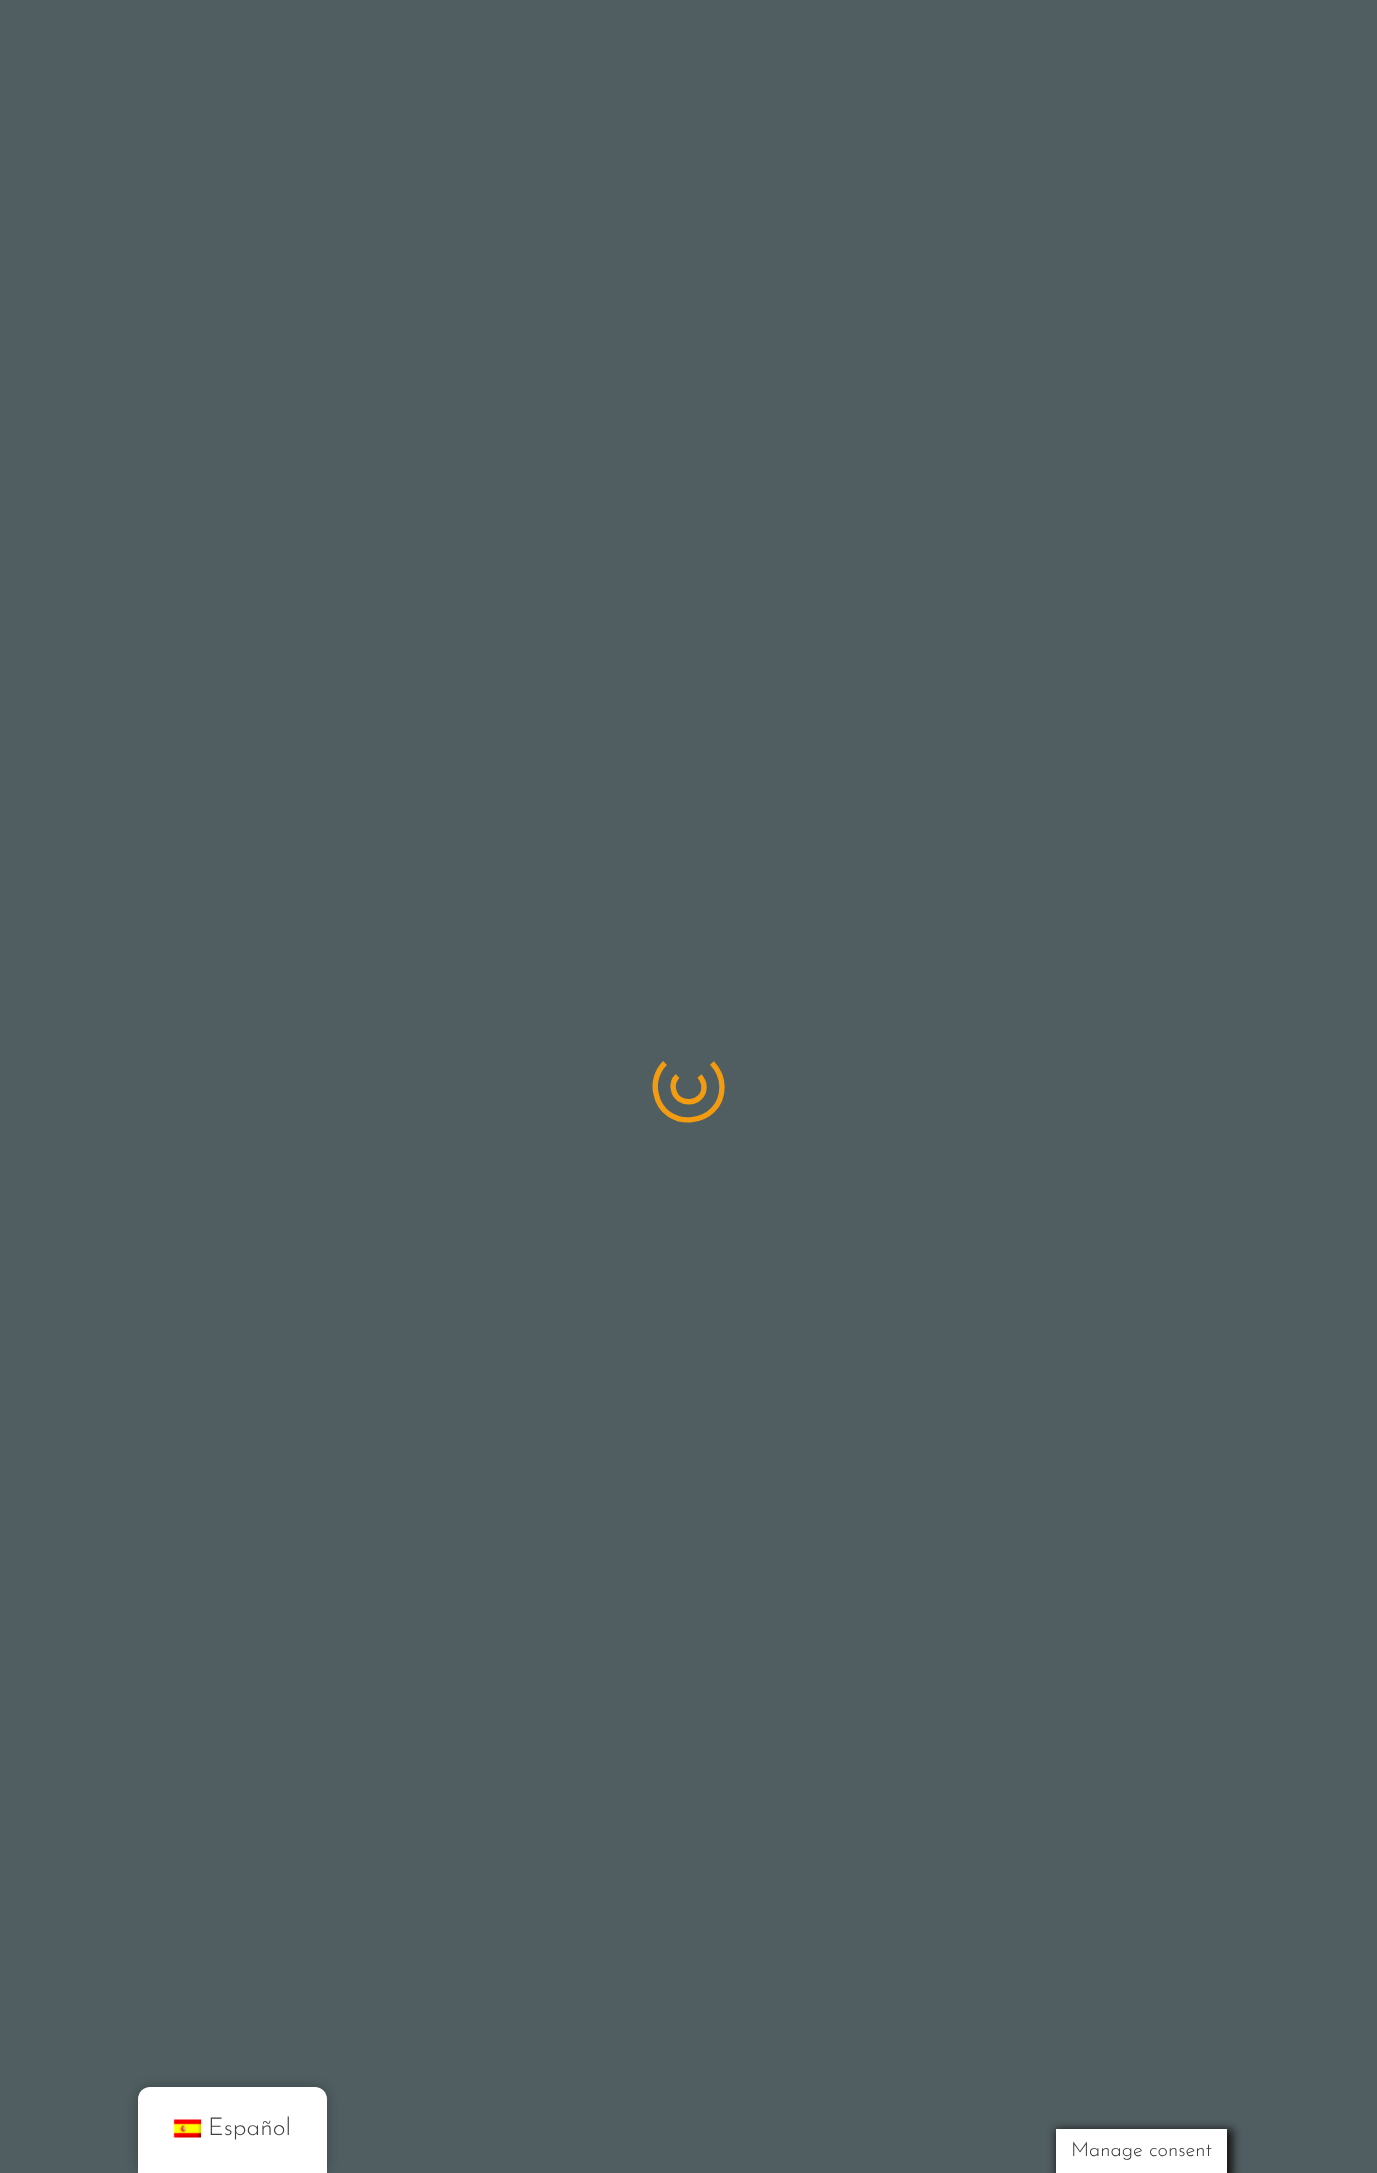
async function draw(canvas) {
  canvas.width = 1377
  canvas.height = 2173
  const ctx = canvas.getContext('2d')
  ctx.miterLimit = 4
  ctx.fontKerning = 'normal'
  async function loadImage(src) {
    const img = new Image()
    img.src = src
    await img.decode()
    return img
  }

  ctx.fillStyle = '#505e61'
  ctx.fillRect(0, 0, 1377, 2173)
  ctx.beginPath()
  ctx.moveTo(712, 1063)
  ctx.bezierCurveTo(718, 1069.5, 722, 1078, 722, 1087)
  ctx.bezierCurveTo(722, 1126.5, 663.5, 1132.5, 656, 1093.5)
  ctx.bezierCurveTo(653.5, 1082.5, 657, 1071, 665, 1063)
  ctx.strokeStyle = '#f39c12'
  ctx.lineWidth = 5.4
  ctx.stroke()
  ctx.beginPath()
  ctx.moveTo(699.5, 1076)
  ctx.bezierCurveTo(702, 1079, 704, 1082.5, 704, 1087)
  ctx.bezierCurveTo(704, 1105, 677, 1107.5, 673.5, 1089.5)
  ctx.bezierCurveTo(672.5, 1085, 674, 1079.5, 677.5, 1076)
  ctx.stroke()
  ctx.fillStyle = '#00000040'
  ctx.filter = 'blur(6px)'
  ctx.beginPath()
  ctx.roundRect(138, 2087, 189, 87, 12)
  ctx.fill()
  ctx.filter = 'none'
  ctx.fillStyle = '#fff'
  ctx.beginPath()
  ctx.moveTo(150, 2087)
  ctx.lineTo(315, 2087)
  ctx.bezierCurveTo(321.5, 2087, 327, 2092.5, 327, 2099)
  ctx.lineTo(327, 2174)
  ctx.lineTo(138, 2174)
  ctx.lineTo(138, 2099)
  ctx.bezierCurveTo(138, 2092.5, 143.5, 2087, 150, 2087)
  ctx.closePath()
  ctx.fill()
  ctx.drawImage(await loadImage('image0.png'), 173, 2119, 28, 19)
  ctx.font = '300 24.5px Josefin Sans'
  ctx.fillStyle = '#404040'
  ctx.fillText('Español', 208, 2135)
  ctx.fillStyle = '#161616'
  ctx.filter = 'blur(4px)'
  ctx.beginPath()
  ctx.rect(1056, 2129, 177, 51)
  ctx.fill()
  ctx.filter = 'none'
  ctx.fillStyle = '#fff'
  ctx.fillRect(1056, 2129, 171, 44)
  ctx.font = '300 20px Josefin Sans'
  ctx.fillStyle = '#333'
  ctx.fillText('Manage consent', 1071, 2156)
}

draw(document.querySelector('canvas'))
